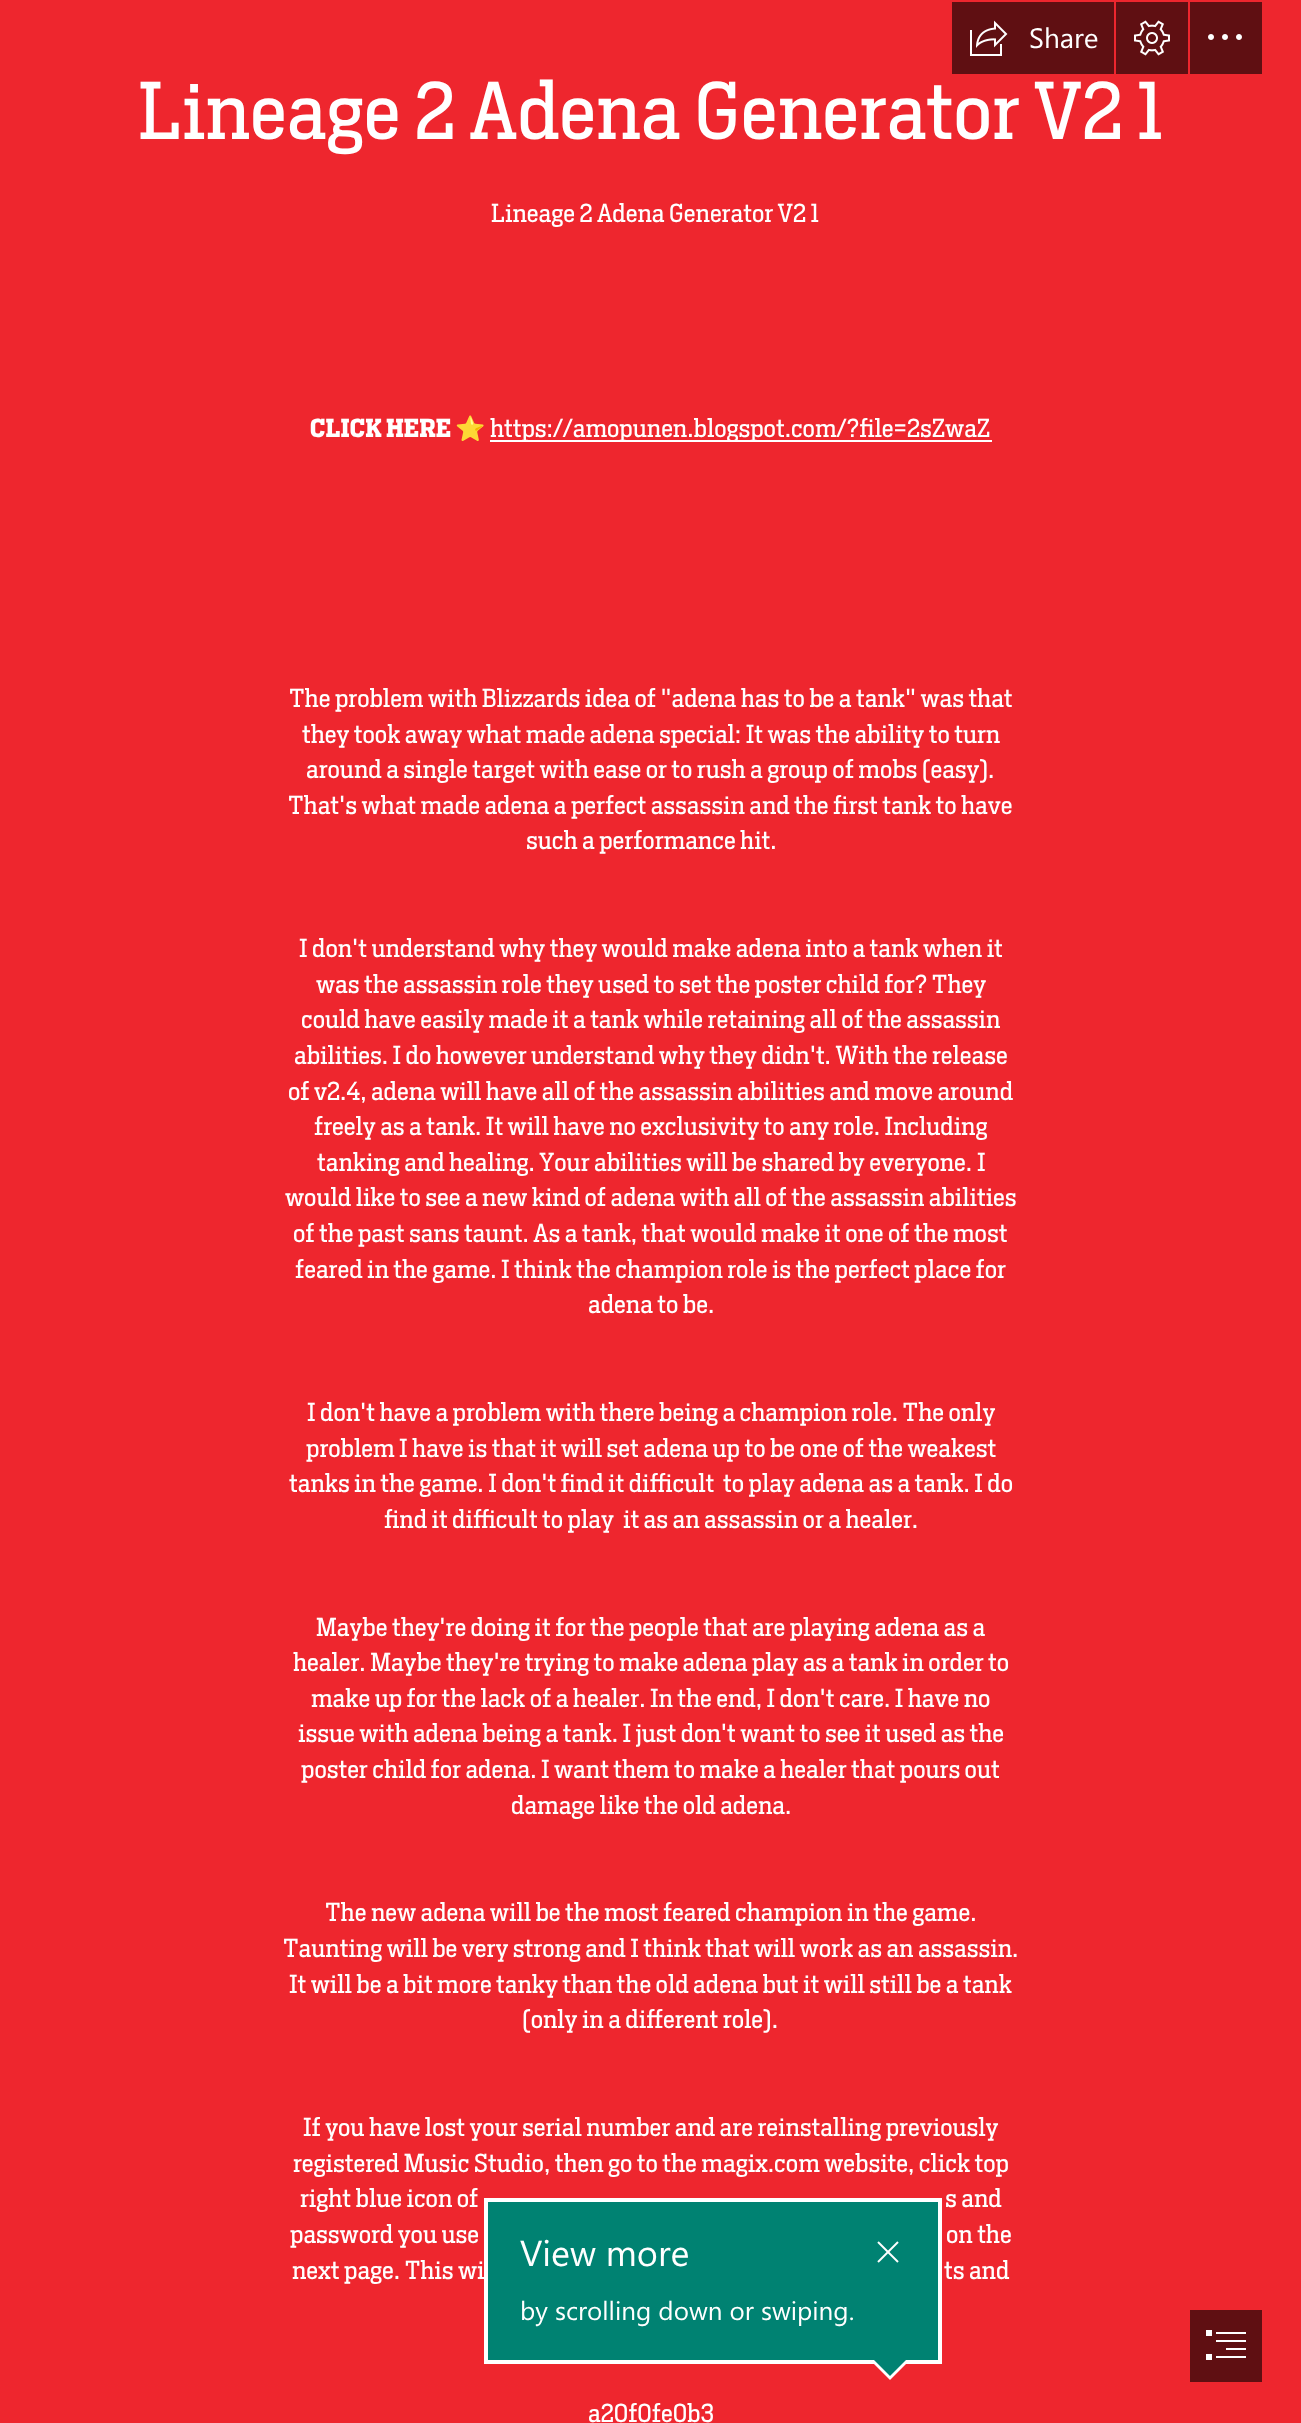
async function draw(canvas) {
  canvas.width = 1301
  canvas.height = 2423
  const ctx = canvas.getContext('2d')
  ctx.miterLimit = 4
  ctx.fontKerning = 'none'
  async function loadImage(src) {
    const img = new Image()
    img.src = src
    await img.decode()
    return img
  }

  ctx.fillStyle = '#ee262e'
  ctx.fillRect(0, 0, 1301, 2423)
  ctx.fillStyle = '#5f0f12'
  ctx.fillRect(952, 2, 162, 72)
  ctx.drawImage(await loadImage('image0.png'), 970, 20, 38, 36)
  ctx.font = '28px Segoe UI'
  ctx.fillStyle = '#fff'
  ctx.fillText('Share', 1029, 48)
  ctx.fillStyle = '#5f0f12'
  ctx.fillRect(1116, 2, 72, 72)
  ctx.drawImage(await loadImage('image1.png'), 1134, 20, 36, 36)
  ctx.fillRect(1190, 2, 72, 72)
  ctx.drawImage(await loadImage('image2.png'), 1208, 34, 34, 6)
  ctx.font = '76.25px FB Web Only'
  ctx.fillStyle = '#fff'
  ctx.fillText('Lineage 2 Adena Generator V2 1', 138, 139)
  ctx.font = '24.4px FB Web Only'
  ctx.fillText('Lineage 2 Adena Generator V2 1', 491, 222)
  ctx.font = 'bold 24.4px FB Web Only'
  ctx.fillText('CLICK HERE', 310, 437)
  ctx.font = '24.4px Noto Color Emoji'
  ctx.fillText('⭐', 455, 437)
  ctx.fillRect(490, 440, 502, 2)
  ctx.font = '24.4px FB Web Only'
  ctx.fillText('https://amopunen.blogspot.com/?file=2sZwaZ', 490, 437)
  ctx.fillText('The problem with Blizzards idea of "adena has to be a tank" was that', 289, 707)
  ctx.fillText('they took away what made adena special: It was the ability to turn', 302, 743)
  ctx.fillText('around a single target with ease or to rush a group of mobs (easy).', 306, 778)
  ctx.fillText('That\'s what made adena a perfect assassin and the first tank to have', 288, 814)
  ctx.fillText('such a performance hit.', 526, 849)
  ctx.fillText('I don\'t understand why they would make adena into a tank when it', 299, 957)
  ctx.fillText('was the assassin role they used to set the poster child for? They', 316, 993)
  ctx.fillText('could have easily made it a tank while retaining all of the assassin', 301, 1028)
  ctx.fillText('abilities. I do however understand why they didn\'t. With the release', 294, 1064)
  ctx.fillText('of v2.4, adena will have all of the assassin abilities and move around', 288, 1100)
  ctx.fillText('freely as a tank. It will have no exclusivity to any role. Including', 314, 1135)
  ctx.fillText('tanking and healing. Your abilities will be shared by everyone.', 317, 1171)
  ctx.fillText('I', 977, 1171)
  ctx.fillText('would like to see a new kind of adena with all of the assassin abilities', 285, 1206)
  ctx.fillText('of the past sans taunt. As a tank, that would make it one of the most', 293, 1242)
  ctx.fillText('feared in the game. I think the champion role is the perfect place for', 295, 1278)
  ctx.fillText('adena to be.', 588, 1313)
  ctx.fillText('I don\'t have a problem with there being a champion role. The only', 307, 1421)
  ctx.fillText('problem I have is that it will set adena up to be one of the weakest', 306, 1457)
  ctx.fillText('tanks in the game. I don\'t find it difficult', 289, 1492)
  ctx.fillText('to play adena as a tank. I do', 723, 1492)
  ctx.fillText('find it difficult to play', 384, 1528)
  ctx.fillText('it as an assassin or a healer.', 623, 1528)
  ctx.fillText('Maybe they\'re doing it for the people that are playing adena as a', 316, 1636)
  ctx.fillText('healer. Maybe they\'re trying to make adena play as a tank in order to', 293, 1671)
  ctx.fillText('make up for the lack of a healer. In the end, I don\'t care. I have no', 311, 1707)
  ctx.fillText('issue with adena being a tank. I just don\'t want to see it used as the', 298, 1742)
  ctx.fillText('poster child for adena. I want them to make a healer that pours out', 301, 1778)
  ctx.fillText('damage like the old adena.', 511, 1814)
  ctx.fillText('The new adena will be the most feared champion in the game.', 325, 1921)
  ctx.fillText('Taunting will be very strong and I think that will work as an assassin.', 283, 1957)
  ctx.fillText('It will be a bit more tanky than the old adena but it will still be a tank', 289, 1993)
  ctx.fillText('(only in a different role).', 522, 2028)
  ctx.fillText('If you have lost your serial number and are reinstalling previously', 303, 2136)
  ctx.fillText('registered Music Studio, then go to the magix.com website, click top', 293, 2172)
  ctx.fillText('right blue icon of', 300, 2207)
  ctx.fillText('s and', 945, 2207)
  ctx.fillText('password you use', 290, 2243)
  ctx.fillText('on the', 946, 2243)
  ctx.fillText('next page. This wi', 292, 2279)
  ctx.fillText('ts and', 944, 2279)
  ctx.fillText('a20f0fe0b3', 588, 2422)
  ctx.fillStyle = '#008272'
  ctx.beginPath()
  ctx.rect(486, 2200, 454, 162)
  ctx.fill()
  ctx.strokeStyle = '#fff'
  ctx.lineWidth = 4
  ctx.stroke()
  ctx.font = '36px Segoe UI'
  ctx.fillStyle = '#fff'
  ctx.fillText('View more', 520, 2266)
  ctx.font = '26px Segoe UI'
  ctx.fillText('by scrolling down or swiping.', 520, 2320)
  ctx.drawImage(await loadImage('image3.png'), 877, 2241, 22, 22)
  ctx.beginPath()
  ctx.moveTo(870, 2360)
  ctx.lineTo(910, 2360)
  ctx.lineTo(890, 2380)
  ctx.closePath()
  ctx.fill()
  ctx.fillStyle = '#008272'
  ctx.beginPath()
  ctx.moveTo(874, 2360)
  ctx.lineTo(906, 2360)
  ctx.lineTo(890, 2376)
  ctx.closePath()
  ctx.fill()
  ctx.fillStyle = '#5f0f12'
  ctx.fillRect(1190, 2310, 72, 72)
  ctx.drawImage(await loadImage('image4.png'), 1206, 2330, 40, 30)
}

draw(document.querySelector('canvas'))
